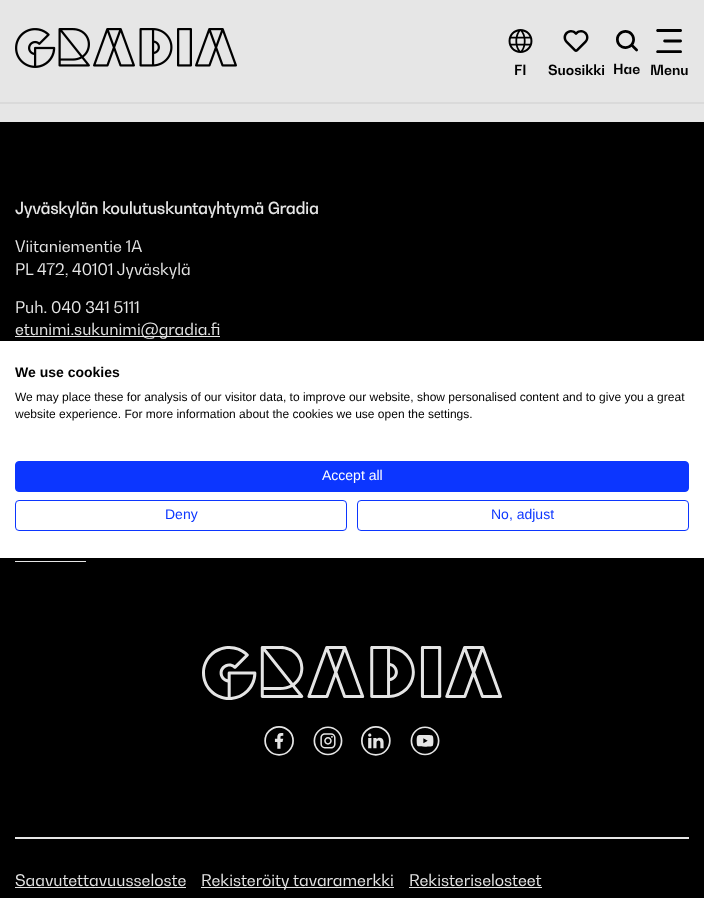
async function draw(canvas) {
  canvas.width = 704
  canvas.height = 898
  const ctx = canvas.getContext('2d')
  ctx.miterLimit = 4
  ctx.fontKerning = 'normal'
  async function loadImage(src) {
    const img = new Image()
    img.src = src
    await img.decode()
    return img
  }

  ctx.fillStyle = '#e6e6e6'
  ctx.fillRect(0, 0, 704, 898)
  ctx.fillStyle = '#dadada'
  ctx.fillRect(0, 102, 704, 2)
  ctx.drawImage(await loadImage('image0.png'), 15, 28, 222, 40)
  ctx.drawImage(await loadImage('image1.png'), 508, 29, 25, 24)
  ctx.font = 'bold 14px "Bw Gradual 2"'
  ctx.fillStyle = '#000'
  ctx.fillText('FI', 514, 75)
  ctx.drawImage(await loadImage('image2.png'), 563, 30, 26, 22)
  ctx.fillText('Suosikki', 548, 75)
  ctx.drawImage(await loadImage('image3.png'), 616, 30, 22, 22)
  ctx.fillText('Hae', 613, 74)
  ctx.drawImage(await loadImage('image4.png'), 656, 29, 26, 24)
  ctx.fillText('Menu', 650, 75)
  ctx.fillRect(0, 122, 704, 776)
  ctx.font = 'bold 16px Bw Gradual'
  ctx.fillStyle = '#e6e6e6'
  ctx.fillText('Jyväskylän koulutuskuntayhtymä Gradia', 15, 214)
  ctx.font = '16px Bw Gradual'
  ctx.fillText('Viitaniementie 1A', 15, 252)
  ctx.fillText('PL 472, 40101 Jyväskylä', 15, 275)
  ctx.fillText('Puh. 040 341 5111', 15, 313)
  ctx.fillRect(15, 336, 205, 1)
  ctx.fillText('etunimi.sukunimi@gradia.fi', 15, 335)
  ctx.fillRect(15, 561, 71, 1)
  ctx.drawImage(await loadImage('image5.png'), 202, 646, 300, 54)
  ctx.drawImage(await loadImage('image6.png'), 264, 726, 30, 30)
  ctx.drawImage(await loadImage('image7.png'), 313, 726, 30, 30)
  ctx.drawImage(await loadImage('image8.png'), 361, 726, 30, 30)
  ctx.drawImage(await loadImage('image9.png'), 410, 726, 30, 30)
  ctx.fillRect(15, 837, 674, 2)
  ctx.fillText('Saavutettavuusseloste', 15, 886)
  ctx.fillRect(15, 887, 171, 1)
  ctx.fillRect(201, 887, 193, 1)
  ctx.fillText('Rekisteröity tavaramerkki', 201, 886)
  ctx.fillText('Rekisteriselosteet', 409, 886)
  ctx.fillRect(409, 887, 133, 1)
  ctx.fillStyle = '#fff'
  ctx.fillRect(0, 341, 704, 217)
  ctx.font = 'bold 14px Liberation Sans'
  ctx.fillStyle = '#000'
  ctx.fillText('We use cookies', 15, 377)
  ctx.font = '12px Liberation Sans'
  ctx.fillText('We may place these for analysis of our visitor data, to improve our website, show personalised content and to give you a great', 15, 401)
  ctx.fillText('website experience. For more information about the cookies we use open the settings.', 15, 418)
  ctx.fillStyle = '#0c36ff'
  ctx.beginPath()
  ctx.roundRect(15.5, 461.5, 673, 30, 3.5)
  ctx.fill()
  ctx.strokeStyle = '#0c36ff'
  ctx.stroke()
  ctx.font = '14px Liberation Sans'
  ctx.fillStyle = '#fff'
  ctx.fillText('Accept all', 322, 480)
  ctx.beginPath()
  ctx.roundRect(15.5, 500.5, 331, 30, 3.5)
  ctx.stroke()
  ctx.fillStyle = '#0c36ff'
  ctx.fillText('Deny', 165, 519)
  ctx.beginPath()
  ctx.roundRect(357.5, 500.5, 331, 30, 3.5)
  ctx.stroke()
  ctx.fillText('No, adjust', 491, 519)
}

draw(document.querySelector('canvas'))
